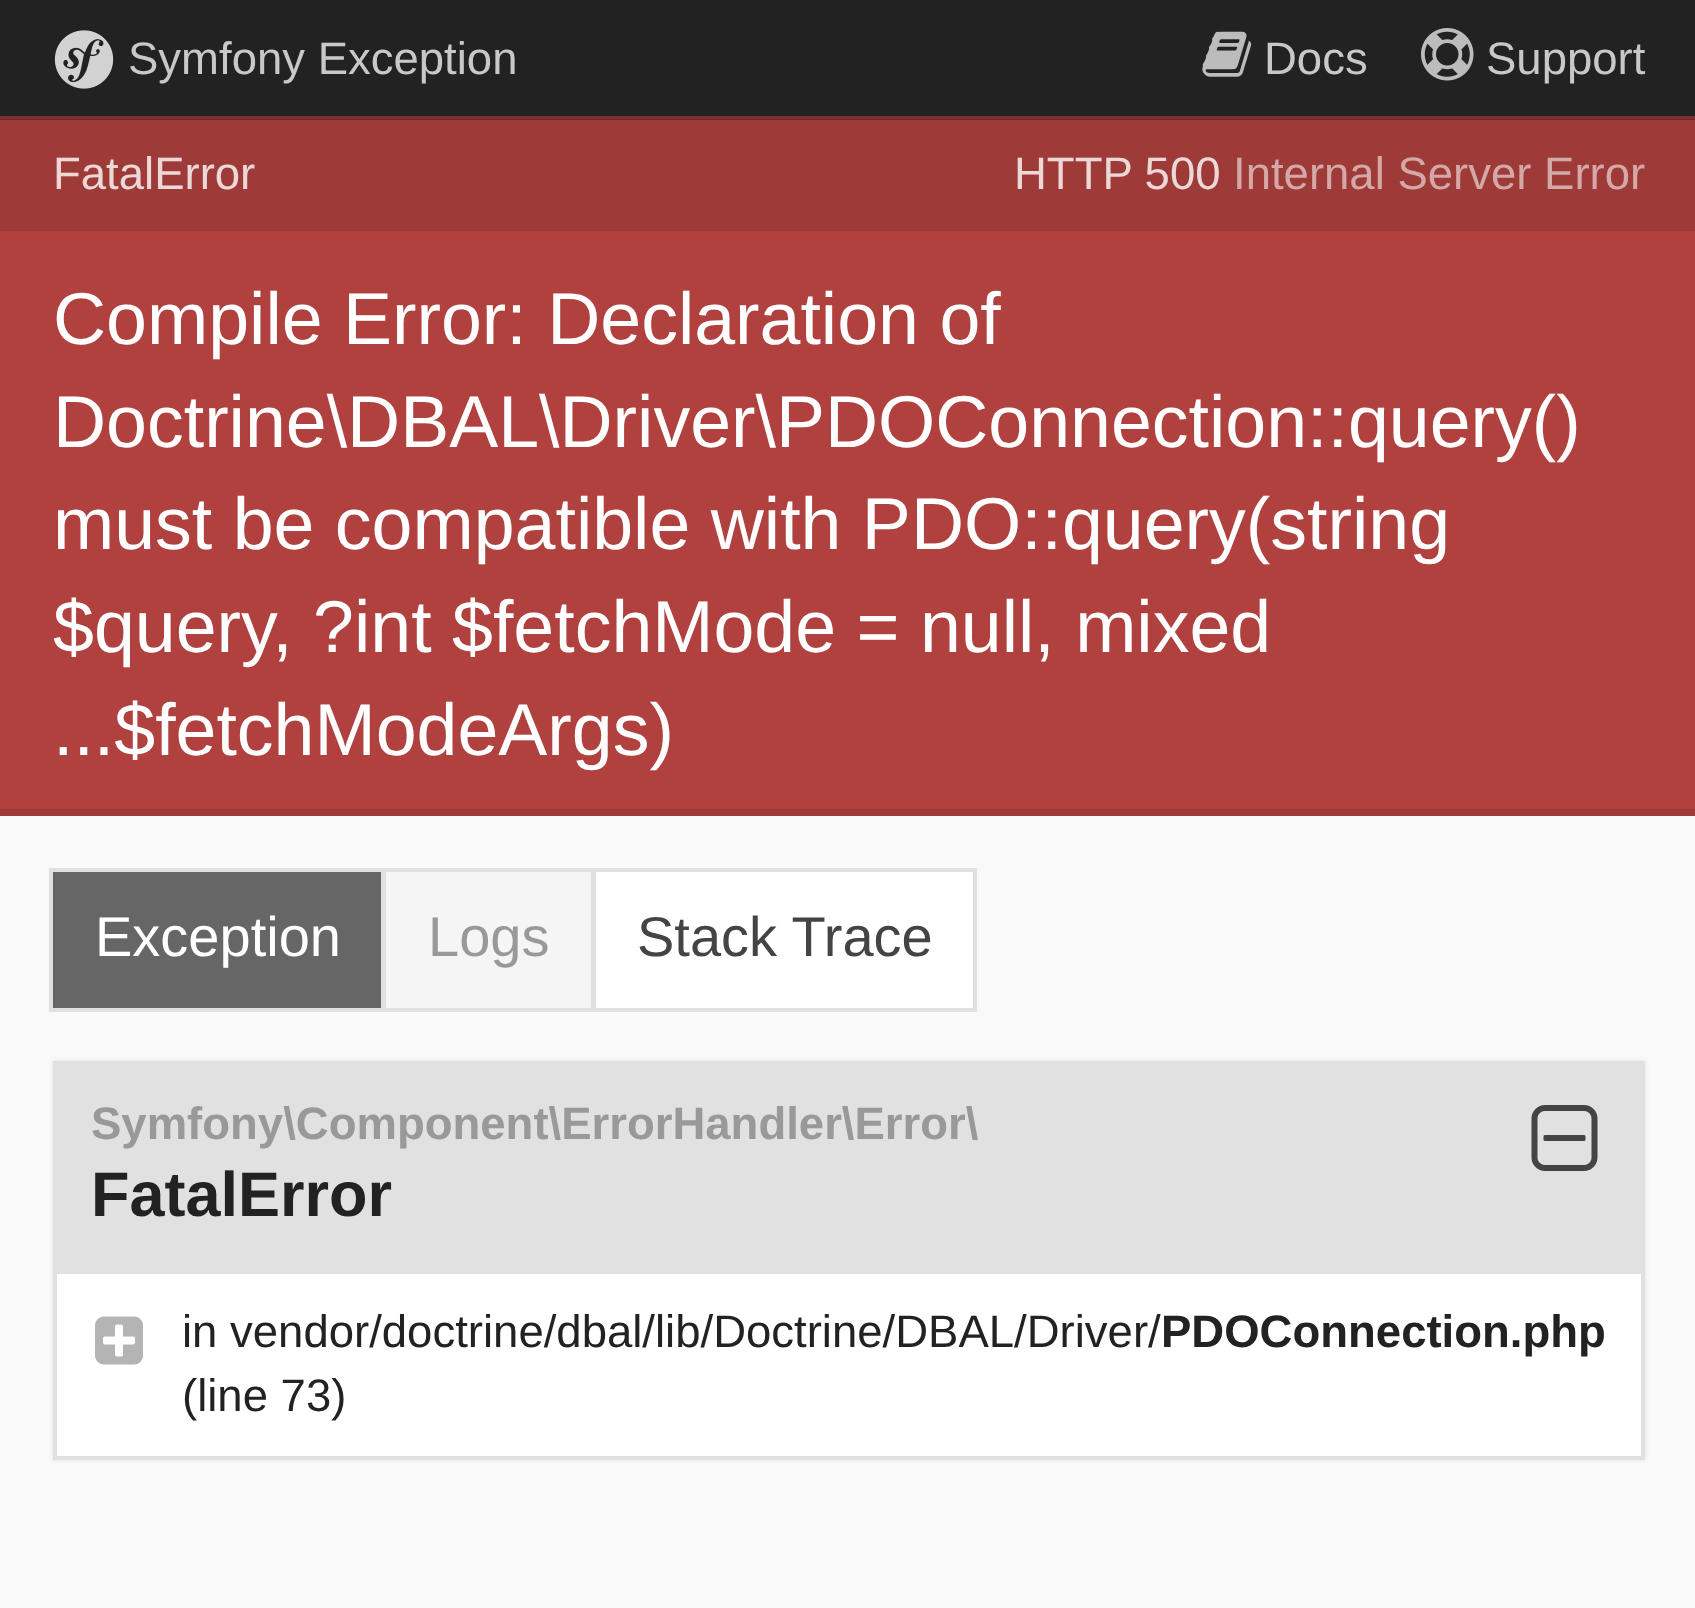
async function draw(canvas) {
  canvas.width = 1695
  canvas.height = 1608
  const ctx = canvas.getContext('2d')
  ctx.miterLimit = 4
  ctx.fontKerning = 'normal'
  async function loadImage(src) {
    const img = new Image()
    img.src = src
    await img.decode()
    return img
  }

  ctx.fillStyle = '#f9f9f9'
  ctx.fillRect(0, 0, 1695, 1608)
  ctx.fillStyle = '#222'
  ctx.fillRect(0, 0, 1695, 116)
  ctx.drawImage(await loadImage('image0.png'), 54, 30, 60, 59)
  ctx.font = '45.5px Liberation Sans'
  ctx.fillStyle = '#c8c8c8'
  ctx.fillText('Symfony Exception', 128, 74)
  ctx.drawImage(await loadImage('image1.png'), 1202, 31, 50, 46)
  ctx.fillText('Docs', 1264, 74)
  ctx.drawImage(await loadImage('image2.png'), 1421, 28, 53, 53)
  ctx.fillText('Support', 1486, 74)
  ctx.fillStyle = '#b0413e'
  ctx.fillRect(0, 231, 1695, 578)
  ctx.fillStyle = '#9e3b38'
  ctx.fillRect(0, 120, 1695, 111)
  ctx.fillStyle = '#7b2e2b'
  ctx.fillRect(0, 116, 1695, 3)
  ctx.fillStyle = '#6f2927'
  ctx.fillRect(0, 119, 1695, 1)
  ctx.fillStyle = '#9e3b38'
  ctx.fillRect(0, 809, 1695, 7)
  ctx.fillStyle = '#ecd8d7'
  ctx.fillText('FatalError', 53, 189)
  ctx.fillText('HTTP 500', 1014, 189)
  ctx.fillStyle = '#d4a8a7'
  ctx.fillText('Internal Server Error', 1233, 189)
  ctx.font = '73.5px Liberation Sans'
  ctx.fillStyle = '#fff'
  ctx.fillText('Compile Error: Declaration of', 53, 344)
  ctx.fillText('Doctrine\\DBAL\\Driver\\PDOConnection::query()', 53, 447)
  ctx.fillText('must be compatible with PDO::query(string', 53, 549)
  ctx.fillText('$query, ?int $fetchMode = null, mixed', 53, 652)
  ctx.fillText('...$fetchModeArgs)', 53, 755)
  ctx.fillStyle = '#666'
  ctx.beginPath()
  ctx.rect(51, 870, 332, 140)
  ctx.fill()
  ctx.strokeStyle = '#e0e0e0'
  ctx.lineWidth = 4
  ctx.stroke()
  ctx.font = '56px Liberation Sans'
  ctx.fillStyle = '#fff'
  ctx.fillText('Exception', 95, 956)
  ctx.fillStyle = '#f5f5f5'
  ctx.beginPath()
  ctx.rect(384, 870, 209, 140)
  ctx.fill()
  ctx.stroke()
  ctx.fillStyle = '#999'
  ctx.fillText('Logs', 428, 956)
  ctx.fillStyle = '#fff'
  ctx.beginPath()
  ctx.rect(594, 870, 381, 140)
  ctx.fill()
  ctx.stroke()
  ctx.fillStyle = '#444'
  ctx.fillText('Stack Trace', 637, 956)
  ctx.fillStyle = '#80808033'
  ctx.filter = 'blur(2px)'
  ctx.beginPath()
  ctx.rect(53, 1061, 1592, 399)
  ctx.fill()
  ctx.filter = 'none'
  ctx.fillStyle = '#fff'
  ctx.fillRect(57, 1274, 1584, 182)
  ctx.strokeRect(55, 1063, 1588, 395)
  ctx.font = 'bold 45.5px Liberation Sans'
  ctx.fillStyle = '#999'
  ctx.fillText('Symfony\\Component\\ErrorHandler\\Error\\', 91, 1139)
  ctx.drawImage(await loadImage('image3.png'), 1531, 1105, 67, 66)
  ctx.font = 'bold 63px Liberation Sans'
  ctx.fillStyle = '#222'
  ctx.fillText('FatalError', 91, 1216)
  ctx.drawImage(await loadImage('image4.png'), 95, 1316, 48, 49)
  ctx.font = '45.5px Liberation Sans'
  ctx.fillText('in vendor/doctrine/dbal/lib/Doctrine/DBAL/Driver/', 182, 1347)
  ctx.font = 'bold 45.5px Liberation Sans'
  ctx.fillText('PDOConnection.php', 1161, 1347)
  ctx.font = '45.5px Liberation Sans'
  ctx.fillText('(line 73)', 182, 1411)
}

draw(document.querySelector('canvas'))
